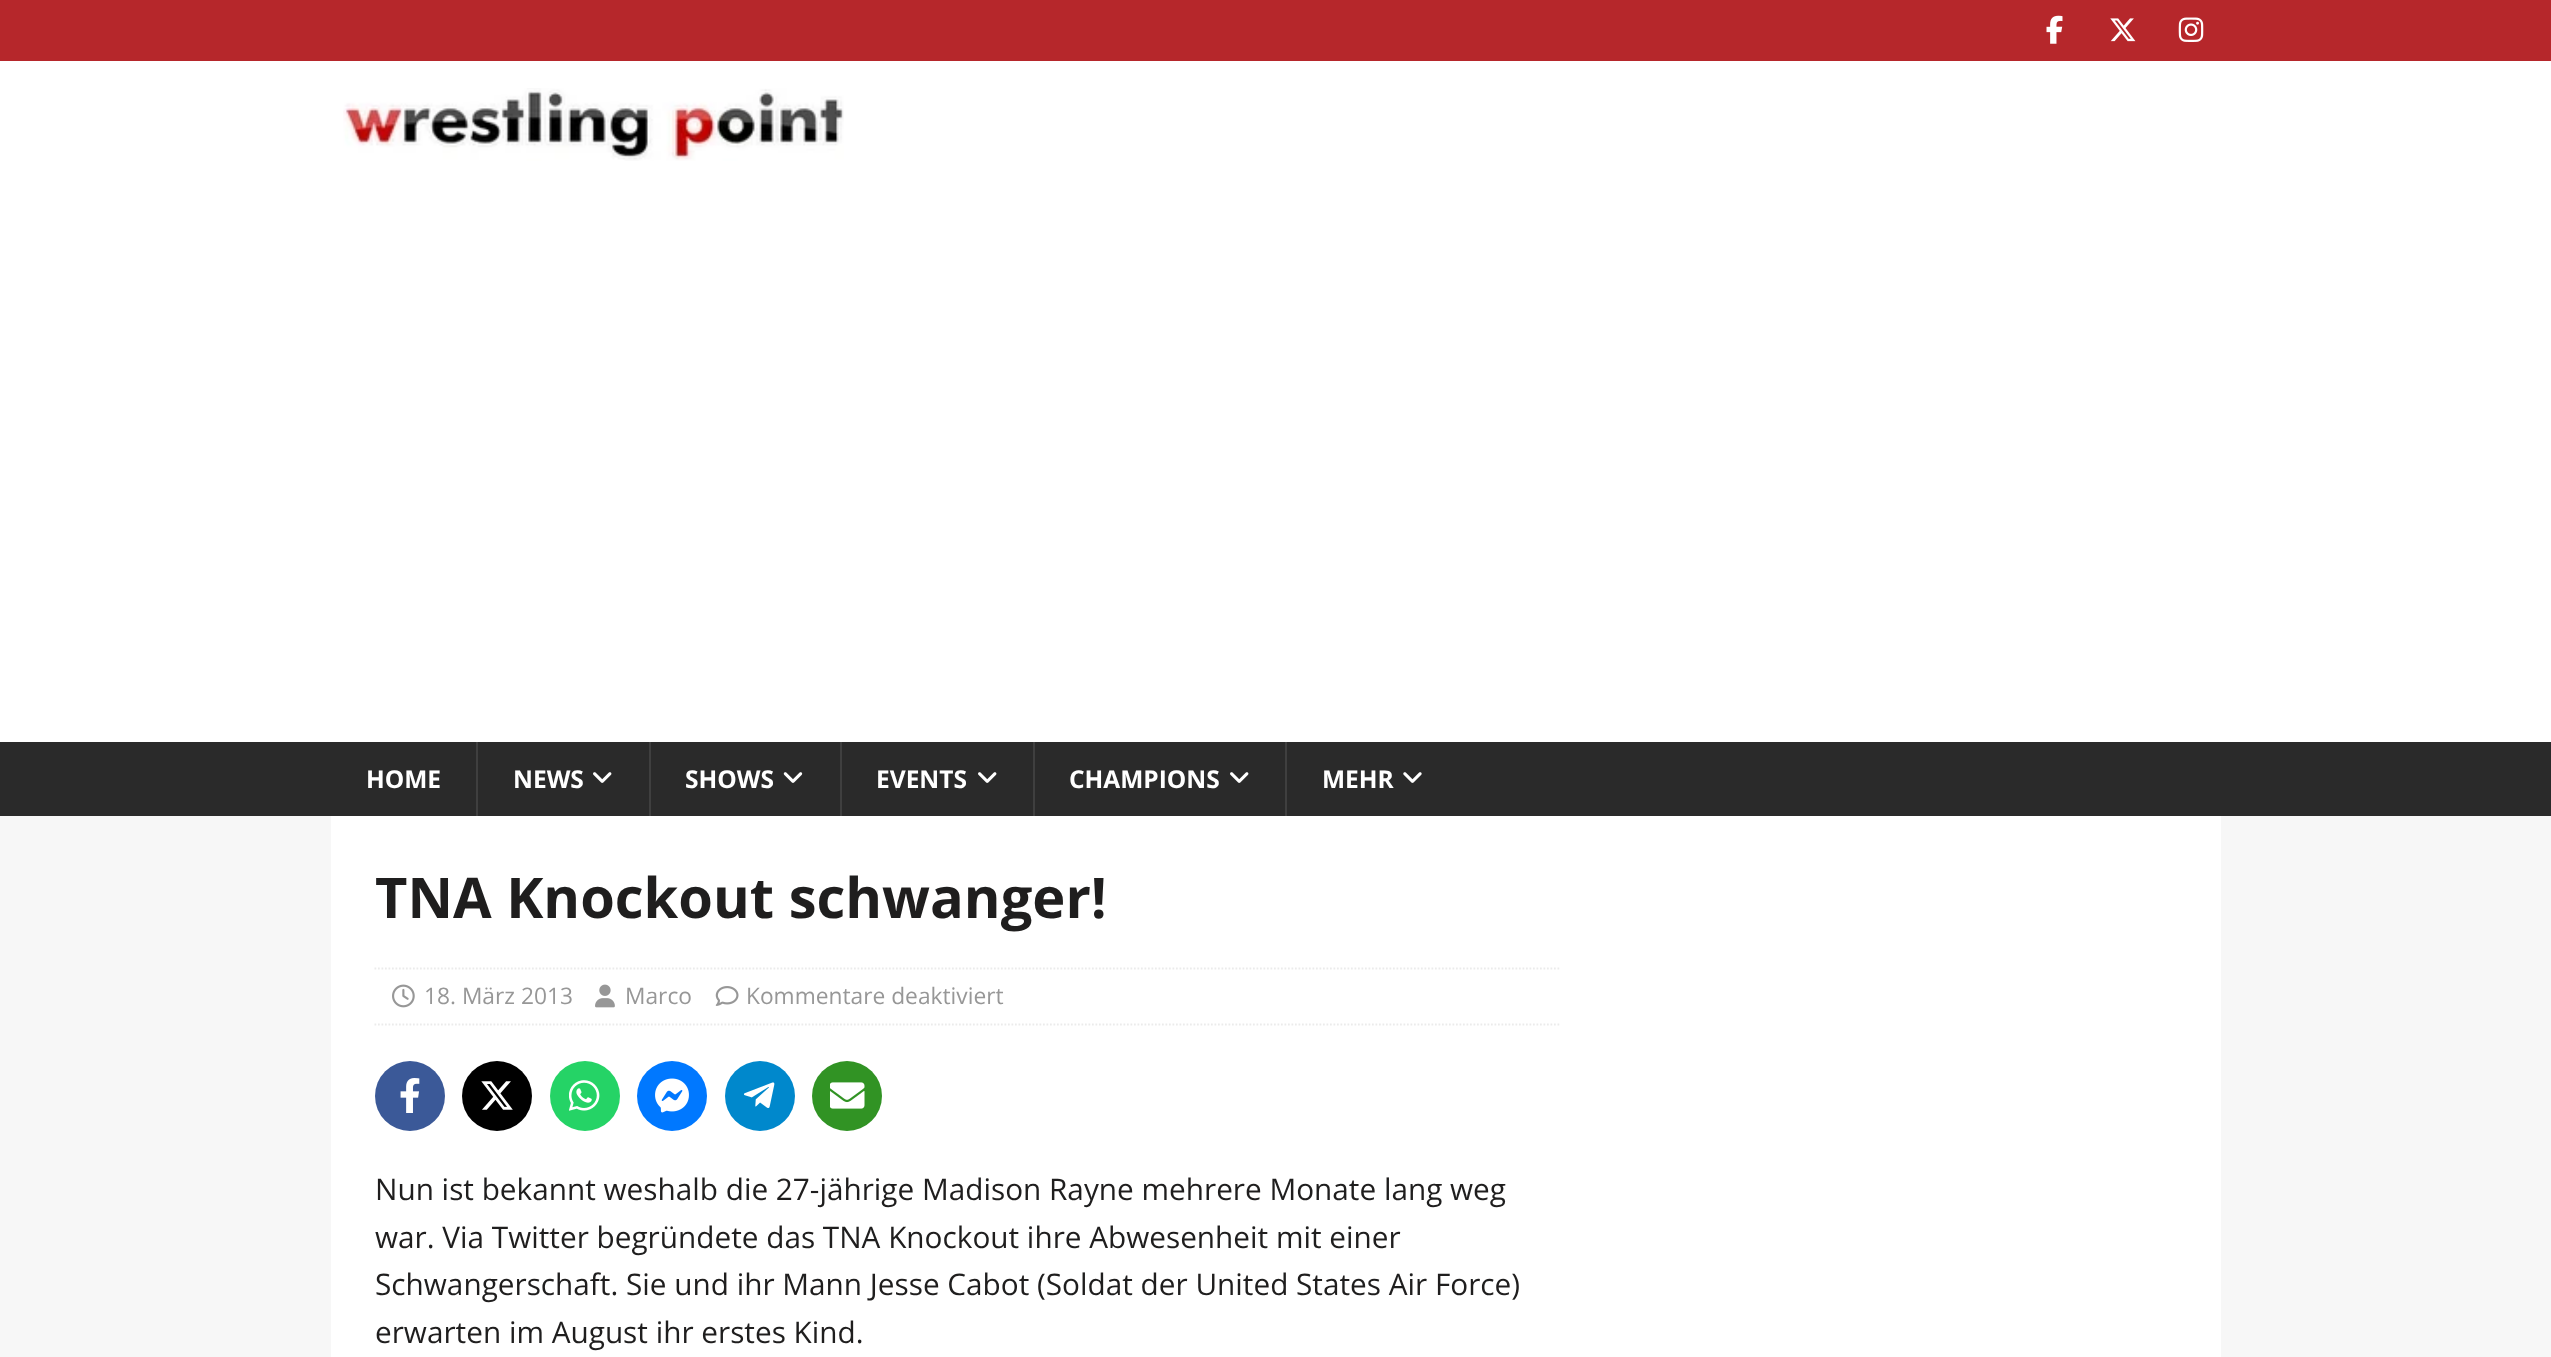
async function draw(canvas) {
  canvas.width = 2551
  canvas.height = 1357
  const ctx = canvas.getContext('2d')
  ctx.miterLimit = 4
  ctx.fontKerning = 'normal'
  async function loadImage(src) {
    const img = new Image()
    img.src = src
    await img.decode()
    return img
  }

  ctx.fillStyle = '#f7f7f7'
  ctx.fillRect(0, 0, 2551, 1357)
  ctx.fillStyle = '#b6272b'
  ctx.fillRect(0, 0, 2551, 61)
  ctx.drawImage(await loadImage('image0.png'), 2046, 15, 17, 29)
  ctx.drawImage(await loadImage('image1.png'), 2110, 18, 26, 24)
  ctx.drawImage(await loadImage('image2.png'), 2178, 17, 26, 25)
  ctx.fillStyle = '#fff'
  ctx.fillRect(0, 61, 2551, 681)
  ctx.drawImage(await loadImage('image3.png'), 343, 88, 501, 73)
  ctx.fillStyle = '#2a2a2a'
  ctx.fillRect(0, 742, 2551, 74)
  ctx.font = 'bold 24.5px Open Sans'
  ctx.fillStyle = '#fff'
  ctx.fillText('HOME', 366, 788)
  ctx.fillStyle = '#3f3f3f'
  ctx.fillRect(476, 742, 2, 74)
  ctx.fillStyle = '#fff'
  ctx.fillText('NEWS', 513, 788)
  ctx.drawImage(await loadImage('image4.png'), 593, 772, 19, 11)
  ctx.fillStyle = '#3f3f3f'
  ctx.fillRect(649, 742, 2, 74)
  ctx.fillStyle = '#fff'
  ctx.fillText('SHOWS', 685, 788)
  ctx.drawImage(await loadImage('image5.png'), 783, 772, 20, 11)
  ctx.fillStyle = '#3f3f3f'
  ctx.fillRect(840, 742, 2, 74)
  ctx.fillStyle = '#fff'
  ctx.fillText('EVENTS', 876, 788)
  ctx.drawImage(await loadImage('image4.png'), 978, 772, 19, 11)
  ctx.fillStyle = '#3f3f3f'
  ctx.fillRect(1033, 742, 2, 74)
  ctx.fillStyle = '#fff'
  ctx.fillText('CHAMPIONS', 1069, 788)
  ctx.drawImage(await loadImage('image4.png'), 1230, 772, 19, 11)
  ctx.fillStyle = '#3f3f3f'
  ctx.fillRect(1285, 742, 2, 74)
  ctx.fillStyle = '#fff'
  ctx.fillText('MEHR', 1322, 788)
  ctx.drawImage(await loadImage('image6.png'), 1403, 772, 19, 11)
  ctx.fillRect(331, 816, 1890, 541)
  ctx.font = 'bold 56px Open Sans'
  ctx.fillStyle = '#1f1e1e'
  ctx.fillText('TNA Knockout schwanger!', 375, 918)
  ctx.beginPath()
  ctx.moveTo(374.5, 968.5)
  ctx.lineTo(1561, 968.5)
  ctx.strokeStyle = '#ebebeb'
  ctx.lineWidth = 1.8
  ctx.setLineDash([1.75, 1.75])
  ctx.stroke()
  ctx.beginPath()
  ctx.moveTo(374.5, 1024.5)
  ctx.lineTo(1561, 1024.5)
  ctx.stroke()
  ctx.drawImage(await loadImage('image7.png'), 392, 984, 23, 24)
  ctx.font = '22.75px Open Sans'
  ctx.fillStyle = '#979797'
  ctx.fillText('18. März 2013', 424, 1004)
  ctx.drawImage(await loadImage('image8.png'), 595, 984, 20, 24)
  ctx.fillText('Marco', 625, 1004)
  ctx.drawImage(await loadImage('image9.png'), 715, 986, 24, 20)
  ctx.fillText('Kommentare deaktiviert', 746, 1004)
  ctx.fillStyle = '#3b5998'
  ctx.beginPath()
  ctx.arc(410, 1096, 35, 0, 2 * Math.PI)
  ctx.fill()
  ctx.drawImage(await loadImage('image10.png'), 400, 1078, 20, 35)
  ctx.fillStyle = '#000'
  ctx.beginPath()
  ctx.arc(497, 1096, 35, 0, 2 * Math.PI)
  ctx.fill()
  ctx.drawImage(await loadImage('image11.png'), 481, 1081, 32, 29)
  ctx.fillStyle = '#25d366'
  ctx.beginPath()
  ctx.arc(585, 1096, 35, 0, 2 * Math.PI)
  ctx.fill()
  ctx.drawImage(await loadImage('image12.png'), 569, 1080, 31, 31)
  ctx.fillStyle = '#0078ff'
  ctx.beginPath()
  ctx.arc(672, 1096, 35, 0, 2 * Math.PI)
  ctx.fill()
  ctx.drawImage(await loadImage('image13.png'), 655, 1078, 34, 35)
  ctx.fillStyle = '#08c'
  ctx.beginPath()
  ctx.arc(760, 1096, 35, 0, 2 * Math.PI)
  ctx.fill()
  ctx.drawImage(await loadImage('image14.png'), 744, 1082, 31, 26)
  ctx.fillStyle = '#319324'
  ctx.beginPath()
  ctx.arc(847, 1096, 35, 0, 2 * Math.PI)
  ctx.fill()
  ctx.drawImage(await loadImage('image15.png'), 830, 1082, 35, 27)
  ctx.font = '29.75px Open Sans'
  ctx.fillStyle = '#1f1e1e'
  ctx.fillText('Nun ist bekannt weshalb die 27-jährige Madison Rayne mehrere Monate lang weg', 375, 1200)
  ctx.fillText('war. Via Twitter begründete das TNA Knockout ihre Abwesenheit mit einer', 375, 1248)
  ctx.fillText('Schwangerschaft. Sie und ihr Mann Jesse Cabot (Soldat der United States Air Force)', 375, 1295)
  ctx.fillText('erwarten im August ihr erstes Kind.', 375, 1343)
}

draw(document.querySelector('canvas'))
